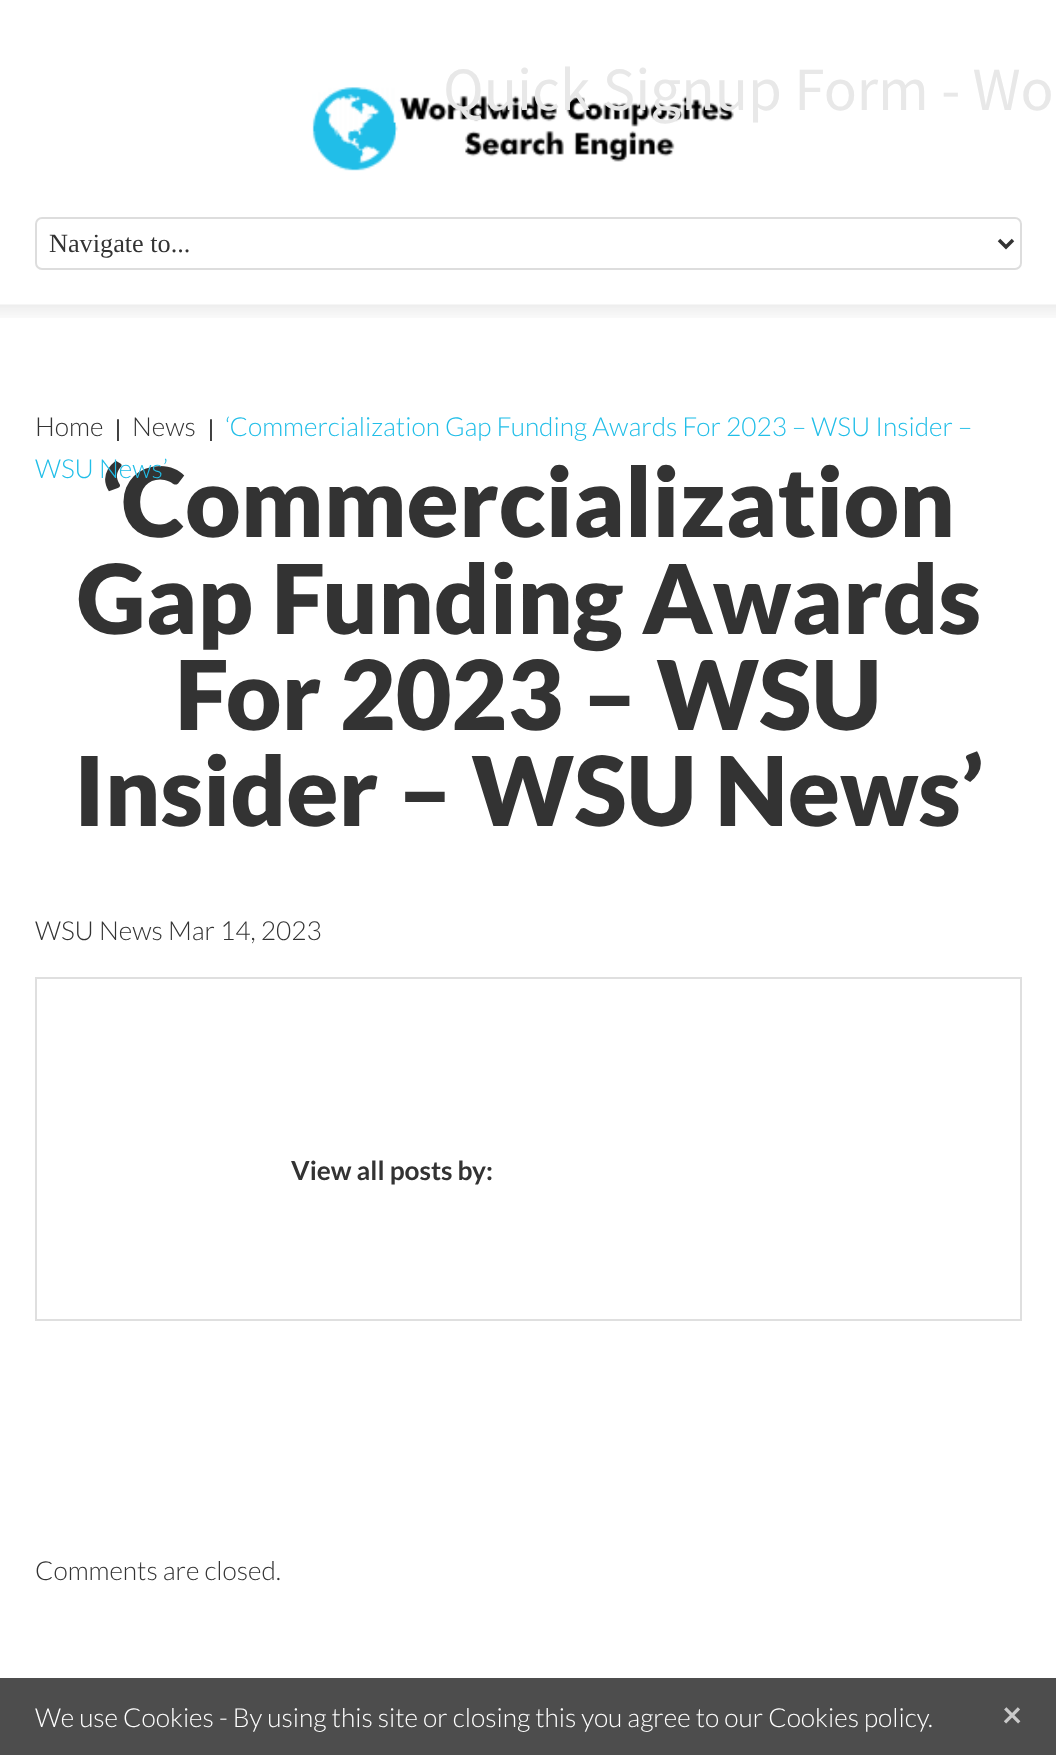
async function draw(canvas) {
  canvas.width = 1056
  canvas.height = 1755
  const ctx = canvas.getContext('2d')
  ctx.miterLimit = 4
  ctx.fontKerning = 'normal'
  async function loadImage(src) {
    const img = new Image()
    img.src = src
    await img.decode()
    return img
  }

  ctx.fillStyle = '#fff'
  ctx.fillRect(0, 0, 1056, 1755)
  ctx.drawImage(await loadImage('image0.png'), 312, 87, 422, 84)
  ctx.font = '61.25px Source Sans Pro'
  ctx.fillStyle = '#e8e8e8'
  ctx.fillText('Quick Signup Form - Wo', 443, 110)
  ctx.beginPath()
  ctx.roundRect(36, 218, 985, 51, 6)
  ctx.strokeStyle = '#ddd'
  ctx.lineWidth = 2
  ctx.stroke()
  ctx.beginPath()
  ctx.moveTo(999, 240)
  ctx.lineTo(1006, 247)
  ctx.lineTo(1013, 240)
  ctx.strokeStyle = '#333'
  ctx.lineWidth = 3.5
  ctx.stroke()
  ctx.font = '26.25px Liberation Serif'
  ctx.fillStyle = '#333'
  ctx.fillText('Navigate to...', 49, 252)
  ctx.drawImage(await loadImage('image1.png'), 0, 304, 1056, 14)
  ctx.font = '300 26.25px Lato'
  ctx.fillText('Home', 35, 436)
  ctx.font = '23px Liberation Sans'
  ctx.fillText('|', 115, 436)
  ctx.font = '300 26.25px Lato'
  ctx.fillText('News', 132, 436)
  ctx.font = '23px Liberation Sans'
  ctx.fillText('|', 208, 436)
  ctx.font = '300 26.25px Lato'
  ctx.fillStyle = '#21bee8'
  ctx.fillText('‘Commercialization Gap Funding Awards For 2023 – WSU Insider –', 225, 436)
  ctx.font = '900 96.25px Lato'
  ctx.fillStyle = '#333'
  ctx.fillText('‘Commercialization', 101, 537)
  ctx.font = '300 26.25px Lato'
  ctx.fillStyle = '#21bee8'
  ctx.fillText('WSU News’', 35, 478)
  ctx.font = '900 96.25px Lato'
  ctx.fillStyle = '#333'
  ctx.fillText('Gap Funding Awards', 77, 634)
  ctx.fillText('For 2023 – WSU', 175, 730)
  ctx.fillText('Insider – WSU News’', 74, 826)
  ctx.font = '300 26.25px Lato'
  ctx.fillText('WSU News Mar 14, 2023', 35, 940)
  ctx.strokeStyle = '#dfdfdf'
  ctx.lineWidth = 2
  ctx.strokeRect(36, 978, 985, 342)
  ctx.font = 'bold 26.25px Lato'
  ctx.fillText('View all posts by:', 291, 1180)
  ctx.font = '300 26.25px Lato'
  ctx.fillText('Comments are closed.', 35, 1580)
  ctx.fillStyle = '#4d4d4d'
  ctx.fillRect(0, 1678, 1056, 77)
  ctx.fillStyle = '#fff'
  ctx.fillText('We use Cookies - By using this site or closing this you agree to our Cookies policy.', 35, 1727)
  ctx.font = 'bold 35px Lato'
  ctx.fillStyle = '#cacaca'
  ctx.fillText('×', 1002, 1727)
}

draw(document.querySelector('canvas'))
